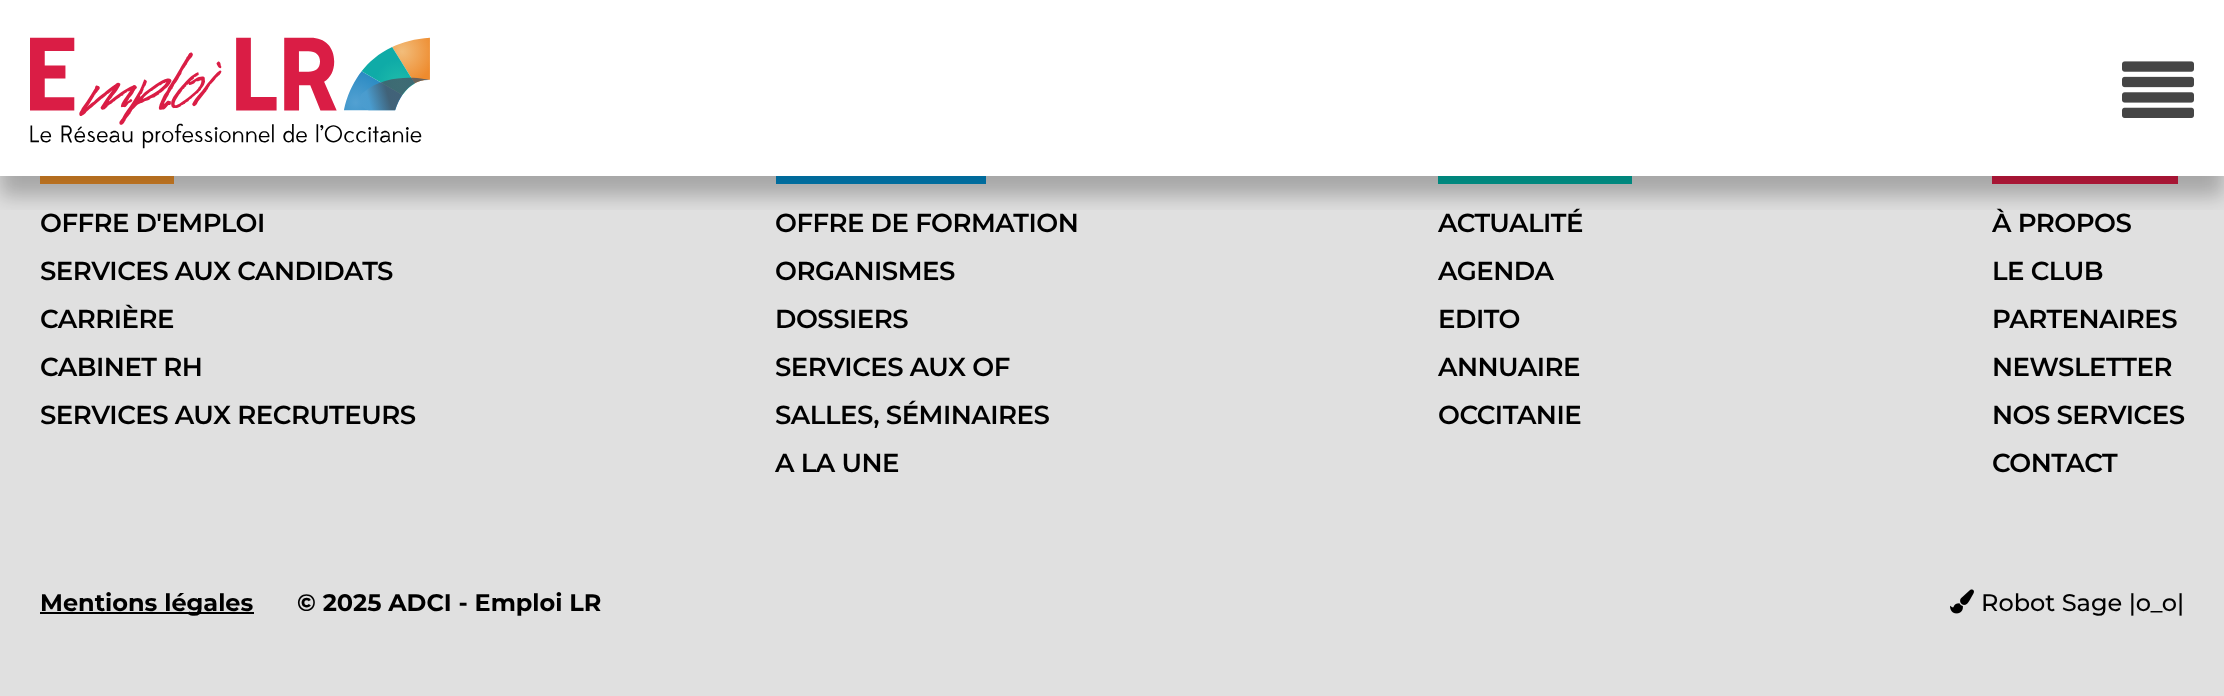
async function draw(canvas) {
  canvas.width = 2224
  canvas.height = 696
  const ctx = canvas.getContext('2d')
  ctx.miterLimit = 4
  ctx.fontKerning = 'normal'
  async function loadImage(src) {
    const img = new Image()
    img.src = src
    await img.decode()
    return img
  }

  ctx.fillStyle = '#e0e0e0'
  ctx.fillRect(0, 0, 2224, 696)
  ctx.fillStyle = '#fff'
  ctx.fillRect(0, 0, 2224, 176)
  ctx.drawImage(await loadImage('image0.png'), 30, 37, 400, 112)
  ctx.drawImage(await loadImage('image1.png'), 2122, 61, 72, 57)
  ctx.fillStyle = '#ee912a'
  ctx.fillRect(40, 176, 134, 8)
  ctx.fillStyle = '#018dcd'
  ctx.fillRect(776, 176, 210, 8)
  ctx.fillStyle = '#01b1a5'
  ctx.fillRect(1438, 176, 194, 8)
  ctx.fillStyle = '#da1d45'
  ctx.fillRect(1992, 176, 186, 8)
  ctx.save()
  ctx.beginPath()
  ctx.rect(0, 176, 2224, 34)
  ctx.clip()
  ctx.fillStyle = '#00000040'
  ctx.filter = 'blur(10px)'
  ctx.beginPath()
  ctx.rect(0, 20, 2224, 176)
  ctx.fill()
  ctx.filter = 'none'
  ctx.restore()
  ctx.letterSpacing = '-0.5px'
  ctx.font = '600 26px Montserrat'
  ctx.fillStyle = '#000'
  ctx.fillText('OFFRE D\'EMPLOI', 40, 232)
  ctx.fillText('SERVICES AUX CANDIDATS', 40, 280)
  ctx.fillText('CARRIÈRE', 40, 328)
  ctx.fillText('CABINET RH', 40, 376)
  ctx.fillText('SERVICES AUX RECRUTEURS', 40, 424)
  ctx.fillText('OFFRE DE FORMATION', 775, 232)
  ctx.fillText('ORGANISMES', 775, 280)
  ctx.fillText('DOSSIERS', 775, 328)
  ctx.fillText('SERVICES AUX OF', 775, 376)
  ctx.fillText('SALLES, SÉMINAIRES', 775, 424)
  ctx.fillText('A LA UNE', 775, 472)
  ctx.fillText('ACTUALITÉ', 1438, 232)
  ctx.fillText('AGENDA', 1438, 280)
  ctx.fillText('EDITO', 1438, 328)
  ctx.fillText('ANNUAIRE', 1438, 376)
  ctx.fillText('OCCITANIE', 1438, 424)
  ctx.fillText('À PROPOS', 1992, 232)
  ctx.fillText('LE CLUB', 1992, 280)
  ctx.fillText('PARTENAIRES', 1992, 328)
  ctx.fillText('NEWSLETTER', 1992, 376)
  ctx.fillText('NOS SERVICES', 1992, 424)
  ctx.fillText('CONTACT', 1992, 472)
  ctx.fillRect(40, 612, 214, 2)
  ctx.letterSpacing = '0px'
  ctx.font = 'bold 24px Montserrat'
  ctx.fillText('Mentions légales', 40, 611)
  ctx.fillText('© 2025 ADCI - Emploi LR', 297, 611)
  ctx.drawImage(await loadImage('image2.png'), 1950, 589, 24, 25)
  ctx.font = '500 24px Montserrat'
  ctx.fillText('Robot Sage |o_o|', 1981, 611)
}

draw(document.querySelector('canvas'))
